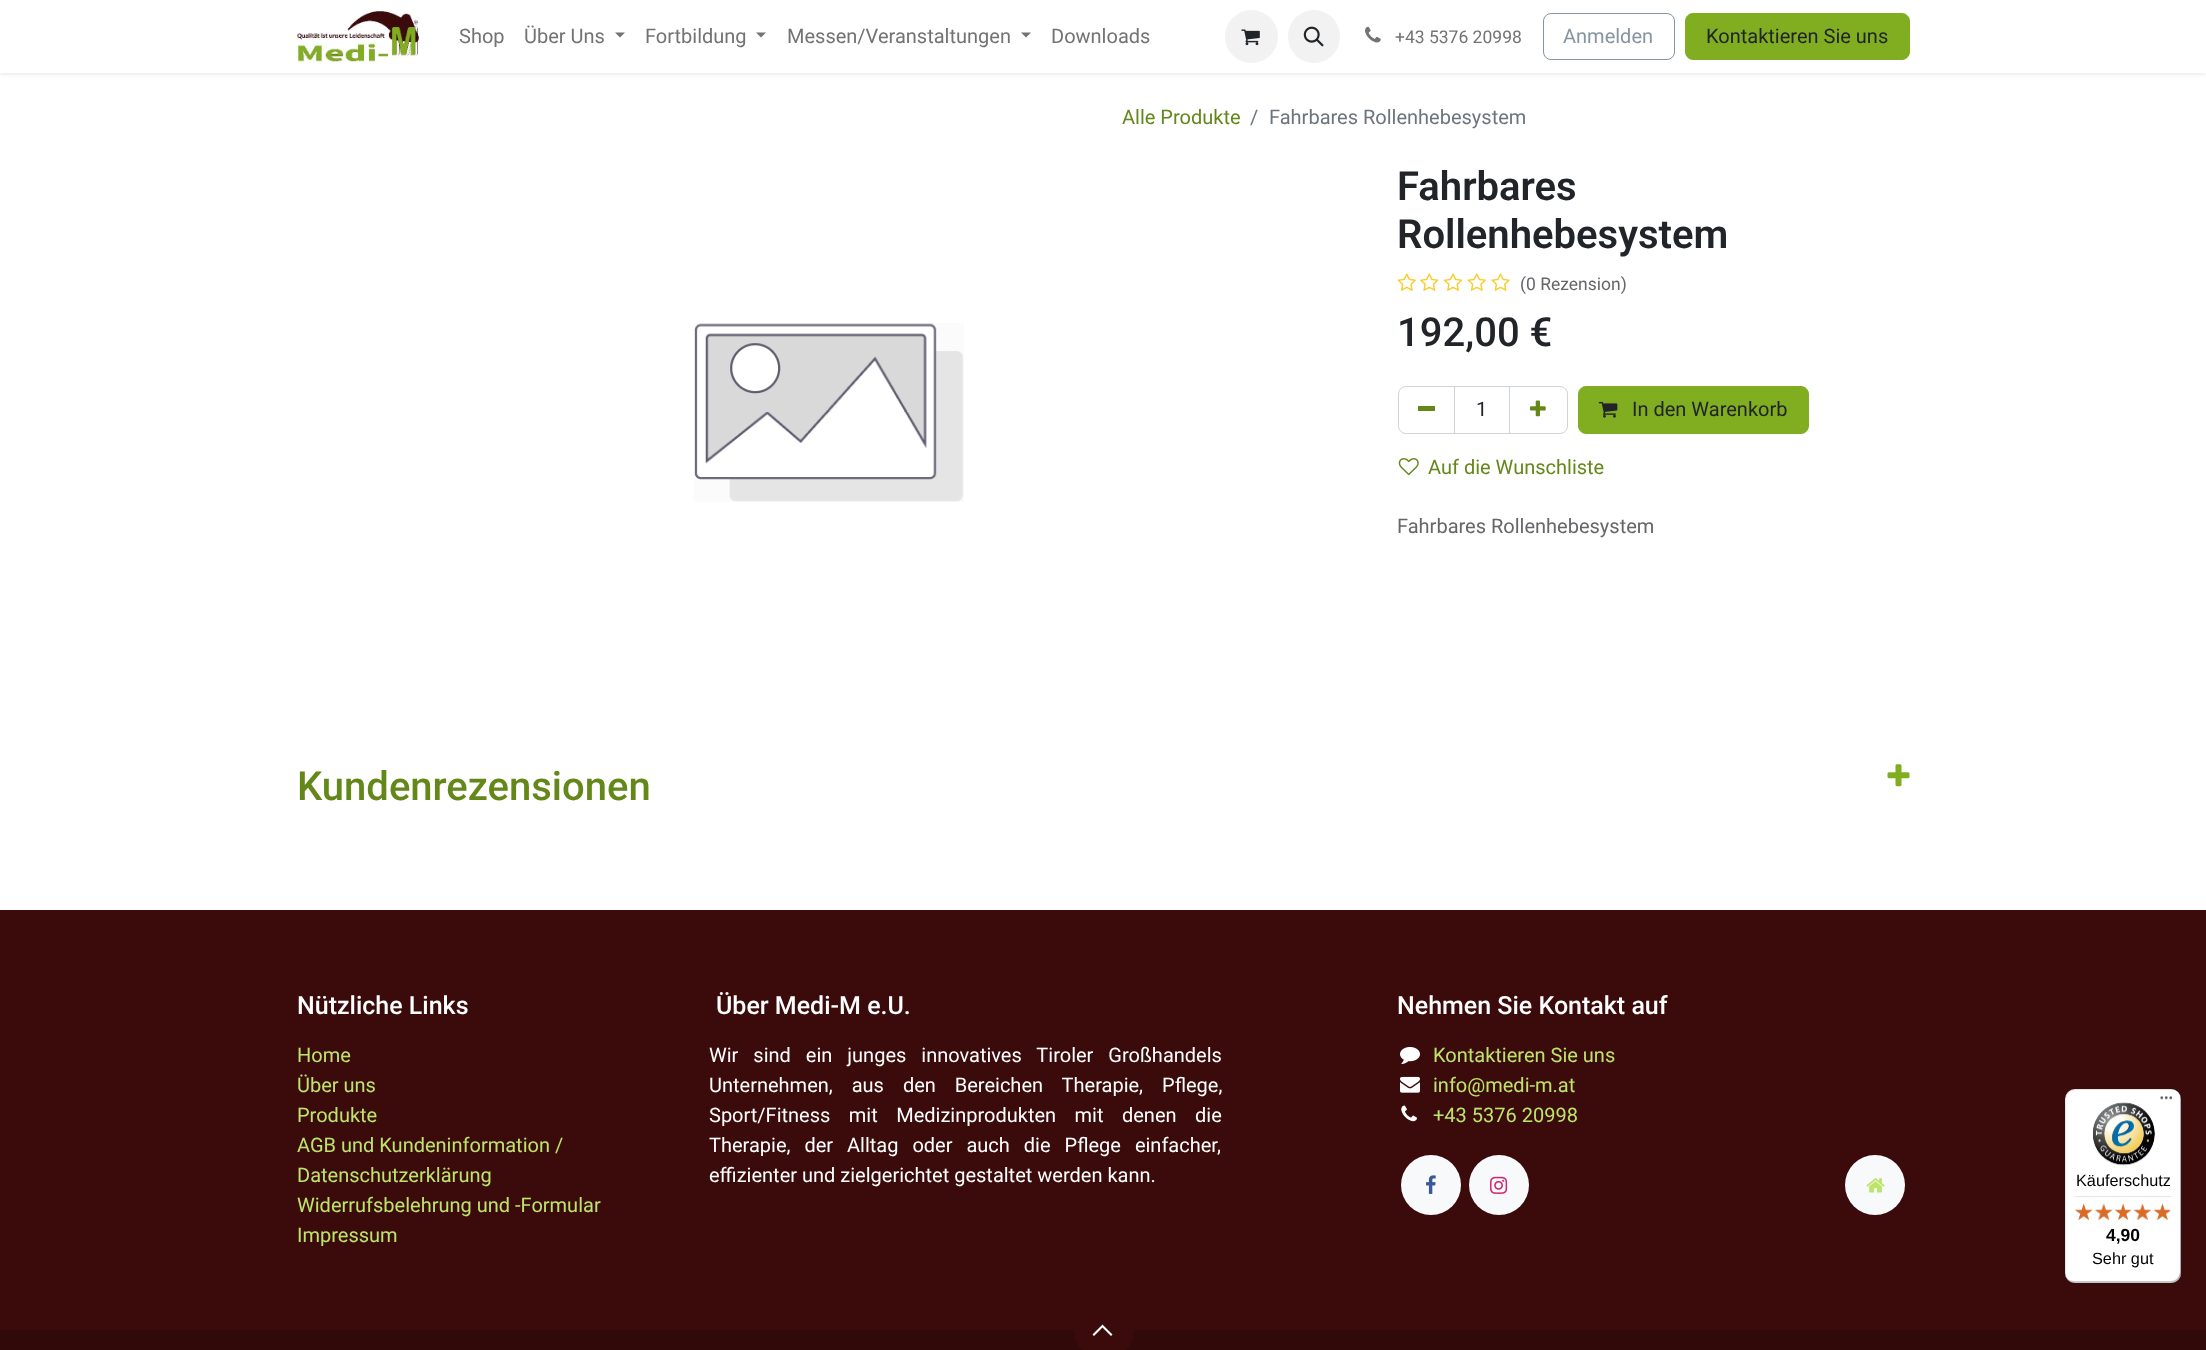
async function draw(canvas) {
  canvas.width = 2206
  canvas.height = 1350
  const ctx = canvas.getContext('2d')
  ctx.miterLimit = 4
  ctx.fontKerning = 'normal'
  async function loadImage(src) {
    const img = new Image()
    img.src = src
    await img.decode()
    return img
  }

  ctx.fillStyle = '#fff'
  ctx.fillRect(0, 0, 2206, 1350)
  ctx.fillStyle = '#0000001a'
  ctx.filter = 'blur(2px)'
  ctx.beginPath()
  ctx.rect(0, 1, 2206, 73)
  ctx.fill()
  ctx.filter = 'none'
  ctx.fillStyle = '#fff'
  ctx.fillRect(0, 0, 2206, 73)
  ctx.drawImage(await loadImage('image0.png'), 297, 11, 122, 51)
  ctx.font = '20px Roboto'
  ctx.fillStyle = '#737373'
  ctx.fillText('Shop', 459, 43)
  ctx.fillText('Über Uns', 524, 43)
  ctx.beginPath()
  ctx.moveTo(615, 32.5)
  ctx.lineTo(625, 32.5)
  ctx.lineTo(620, 37.5)
  ctx.closePath()
  ctx.fill()
  ctx.fillText('Fortbildung', 645, 43)
  ctx.beginPath()
  ctx.moveTo(756, 32.5)
  ctx.lineTo(766, 32.5)
  ctx.lineTo(761, 37.5)
  ctx.closePath()
  ctx.fill()
  ctx.fillText('Messen/Veranstaltungen', 787, 43)
  ctx.beginPath()
  ctx.moveTo(1021, 32.5)
  ctx.lineTo(1031, 32.5)
  ctx.lineTo(1026, 37.5)
  ctx.closePath()
  ctx.fill()
  ctx.fillText('Downloads', 1051, 43)
  ctx.fillStyle = '#f2f2f2'
  ctx.beginPath()
  ctx.arc(1251.5, 36.5, 26.5, 0, 2 * Math.PI)
  ctx.fill()
  ctx.drawImage(await loadImage('image1.png'), 1241, 29, 19, 17)
  ctx.beginPath()
  ctx.roundRect(1288, 10, 52, 53, 26)
  ctx.fill()
  ctx.drawImage(await loadImage('image2.png'), 1303, 26, 21, 21)
  ctx.drawImage(await loadImage('image3.png'), 1365, 26, 16, 17)
  ctx.font = '17.5px Roboto'
  ctx.fillStyle = '#737373'
  ctx.fillText('+43 5376 20998', 1395, 43)
  ctx.beginPath()
  ctx.roundRect(1543.5, 13.5, 131, 46, 7.5)
  ctx.strokeStyle = '#8595a2'
  ctx.stroke()
  ctx.font = '20px Roboto'
  ctx.fillStyle = '#8595a2'
  ctx.fillText('Anmelden', 1563, 43)
  ctx.fillStyle = '#81ae20'
  ctx.beginPath()
  ctx.roundRect(1685.5, 13.5, 224, 46, 7.5)
  ctx.fill()
  ctx.strokeStyle = '#81ae20'
  ctx.stroke()
  ctx.fillStyle = '#212529'
  ctx.fillText('Kontaktieren Sie uns', 1706, 43)
  ctx.fillStyle = '#648719'
  ctx.fillText('Alle Produkte', 1122, 124)
  ctx.fillStyle = '#6c757d'
  ctx.fillText('/', 1250, 124)
  ctx.fillText('Fahrbares Rollenhebesystem', 1269, 124)
  ctx.drawImage(await loadImage('image4.png'), 694, 323, 270, 179)
  ctx.font = '600 40px Roboto'
  ctx.fillStyle = '#212529'
  ctx.fillText('Fahrbares', 1397, 200)
  ctx.fillText('Rollenhebesystem', 1397, 248)
  ctx.drawImage(await loadImage('image5.png'), 1397, 273, 19, 18)
  ctx.drawImage(await loadImage('image6.png'), 1420, 273, 19, 18)
  ctx.drawImage(await loadImage('image7.png'), 1443, 273, 20, 18)
  ctx.drawImage(await loadImage('image5.png'), 1467, 273, 19, 18)
  ctx.drawImage(await loadImage('image8.png'), 1491, 273, 19, 18)
  ctx.font = '17.5px Roboto'
  ctx.fillStyle = '#646669'
  ctx.fillText('(0 Rezension)', 1520, 290)
  ctx.font = '500 40px Roboto'
  ctx.fillStyle = '#212529'
  ctx.fillText('192,00 €', 1397, 346)
  ctx.strokeStyle = '#ced4da'
  ctx.strokeRect(1454.5, 386.5, 55, 47)
  ctx.beginPath()
  ctx.roundRect(1398.5, 386.5, 56, 47, [7.5, 0, 0, 7.5])
  ctx.stroke()
  ctx.fillStyle = '#648719'
  ctx.fillRect(1418, 406, 17, 5)
  ctx.font = '20px Roboto'
  ctx.fillStyle = '#212529'
  ctx.fillText('1', 1476, 416)
  ctx.beginPath()
  ctx.roundRect(1509.5, 386.5, 58, 47, [0, 7.5, 7.5, 0])
  ctx.stroke()
  ctx.drawImage(await loadImage('image9.png'), 1530, 400, 16, 17)
  ctx.fillStyle = '#81ae20'
  ctx.beginPath()
  ctx.roundRect(1578.5, 386.5, 230, 47, 7.5)
  ctx.fill()
  ctx.strokeStyle = '#81ae20'
  ctx.stroke()
  ctx.drawImage(await loadImage('image10.png'), 1598, 401, 20, 17)
  ctx.fillStyle = '#212529'
  ctx.fillText('In den Warenkorb', 1632, 416)
  ctx.drawImage(await loadImage('image11.png'), 1398, 458, 21, 18)
  ctx.fillStyle = '#648719'
  ctx.fillText('Auf die Wunschliste', 1428, 474)
  ctx.fillStyle = '#646669'
  ctx.fillText('Fahrbares Rollenhebesystem', 1397, 533)
  ctx.font = '500 40px Roboto'
  ctx.fillStyle = '#648719'
  ctx.fillText('Kundenrezensionen', 297, 800)
  ctx.drawImage(await loadImage('image12.png'), 1887, 764, 23, 23)
  ctx.fillStyle = '#3b0b0b'
  ctx.fillRect(0, 910, 2206, 420)
  ctx.font = '500 25px Roboto'
  ctx.fillStyle = '#fff'
  ctx.fillText('Nützliche Links', 297, 1014)
  ctx.font = '20px Roboto'
  ctx.fillStyle = '#bde46a'
  ctx.fillText('Home', 297, 1062)
  ctx.fillText('Über uns', 297, 1092)
  ctx.fillText('Produkte', 297, 1122)
  ctx.fillText('AGB und Kundeninformation /', 297, 1152)
  ctx.fillText('Datenschutzerklärung', 297, 1182)
  ctx.fillText('Widerrufsbelehrung und -Formular', 297, 1212)
  ctx.fillText('Impressum', 297, 1242)
  ctx.font = '500 25px Roboto'
  ctx.fillStyle = '#fff'
  ctx.fillText('Über Medi-M e.U.', 716, 1014)
  ctx.wordSpacing = '10px'
  ctx.font = '20px Roboto'
  ctx.fillText('Wir sind ein junges innovatives Tiroler Großhandels', 709, 1062)
  ctx.wordSpacing = '14px'
  ctx.fillText('Unternehmen, aus den Bereichen Therapie, Pflege,', 709, 1092)
  ctx.wordSpacing = '13.5px'
  ctx.fillText('Sport/Fitness mit Medizinprodukten mit denen die', 709, 1122)
  ctx.wordSpacing = '9px'
  ctx.fillText('Therapie, der Alltag oder auch die Pflege einfacher,', 709, 1152)
  ctx.wordSpacing = '0px'
  ctx.fillText('effizienter und zielgerichtet gestaltet werden kann.', 709, 1182)
  ctx.font = '500 25px Roboto'
  ctx.fillText('Nehmen Sie Kontakt auf', 1397, 1014)
  ctx.drawImage(await loadImage('image13.png'), 1400, 1047, 20, 18)
  ctx.font = '20px Roboto'
  ctx.fillStyle = '#bde46a'
  ctx.fillText('Kontaktieren Sie uns', 1433, 1062)
  ctx.drawImage(await loadImage('image14.png'), 1400, 1076, 20, 17)
  ctx.fillText('info@medi-m.at', 1433, 1092)
  ctx.drawImage(await loadImage('image15.png'), 1401, 1105, 16, 17)
  ctx.fillText('+43 5376 20998', 1433, 1122)
  ctx.fillStyle = '#f8f9fa'
  ctx.beginPath()
  ctx.arc(1431, 1185, 30, 0, 2 * Math.PI)
  ctx.fill()
  ctx.drawImage(await loadImage('image16.png'), 1426, 1175, 10, 19)
  ctx.beginPath()
  ctx.arc(1499, 1185, 30, 0, 2 * Math.PI)
  ctx.fill()
  ctx.drawImage(await loadImage('image17.png'), 1490, 1176, 18, 18)
  ctx.beginPath()
  ctx.arc(1875, 1185, 30, 0, 2 * Math.PI)
  ctx.fill()
  ctx.drawImage(await loadImage('image18.png'), 1866, 1178, 19, 15)
  ctx.fillStyle = '#320909'
  ctx.fillRect(0, 1330, 2206, 20)
  ctx.fillStyle = '#3b0b0b'
  ctx.beginPath()
  ctx.arc(1104, 1330, 30, 0, 2 * Math.PI)
  ctx.fill()
  ctx.fillStyle = '#fff'
  ctx.beginPath()
  ctx.moveTo(1102.5, 1324.5)
  ctx.lineTo(1112.5, 1334.5)
  ctx.lineTo(1111, 1336)
  ctx.lineTo(1102.5, 1327.5)
  ctx.lineTo(1094, 1336)
  ctx.lineTo(1092.5, 1334.5)
  ctx.closePath()
  ctx.fill()
  ctx.beginPath()
  ctx.roundRect(2065, 1089, 116, 194, 10)
  ctx.fill()
  ctx.fillStyle = '#0000001a'
  ctx.beginPath()
  ctx.moveTo(2076, 1090)
  ctx.lineTo(2172, 1090)
  ctx.bezierCurveTo(2174, 1090, 2176, 1090, 2177, 1091)
  ctx.bezierCurveTo(2176, 1090, 2173, 1089, 2171, 1089)
  ctx.lineTo(2075, 1089)
  ctx.bezierCurveTo(2069, 1089, 2065, 1093, 2065, 1099)
  ctx.lineTo(2065, 1273)
  ctx.bezierCurveTo(2065, 1277, 2067, 1280, 2070, 1282)
  ctx.bezierCurveTo(2068, 1280, 2066, 1277, 2066, 1274)
  ctx.lineTo(2066, 1100)
  ctx.bezierCurveTo(2066, 1094, 2071, 1090, 2076, 1090)
  ctx.closePath()
  ctx.fill()
  ctx.fillStyle = '#00000033'
  ctx.beginPath()
  ctx.moveTo(2066, 1277)
  ctx.bezierCurveTo(2068, 1281, 2071, 1283, 2075, 1283)
  ctx.lineTo(2171, 1283)
  ctx.bezierCurveTo(2177, 1283, 2181, 1279, 2181, 1273)
  ctx.lineTo(2181, 1099)
  ctx.bezierCurveTo(2181, 1097, 2180, 1094, 2179, 1093)
  ctx.bezierCurveTo(2180, 1094, 2180, 1096, 2180, 1098)
  ctx.lineTo(2180, 1271)
  ctx.bezierCurveTo(2180, 1277, 2176, 1281, 2170, 1281)
  ctx.lineTo(2074, 1281)
  ctx.bezierCurveTo(2071, 1281, 2068, 1280, 2066, 1277)
  ctx.closePath()
  ctx.fill()
  ctx.fillStyle = '#32323233'
  ctx.beginPath()
  ctx.moveTo(2066, 1278)
  ctx.bezierCurveTo(2068, 1281, 2071, 1283, 2075, 1283)
  ctx.lineTo(2171, 1283)
  ctx.bezierCurveTo(2177, 1283, 2181, 1279, 2181, 1273)
  ctx.lineTo(2181, 1099)
  ctx.bezierCurveTo(2181, 1097, 2180, 1094, 2179, 1093)
  ctx.bezierCurveTo(2180, 1094, 2180, 1096, 2180, 1098)
  ctx.lineTo(2180, 1272)
  ctx.bezierCurveTo(2180, 1277, 2176, 1282, 2170, 1282)
  ctx.lineTo(2074, 1282)
  ctx.bezierCurveTo(2071, 1282, 2068, 1280, 2066, 1278)
  ctx.closePath()
  ctx.fill()
  ctx.drawImage(await loadImage('image19.png'), 2160, 1096, 13, 4)
  ctx.fillStyle = '#ffffff4d'
  ctx.beginPath()
  ctx.moveTo(2066, 1278)
  ctx.bezierCurveTo(2068, 1281, 2071, 1283, 2075, 1283)
  ctx.lineTo(2171, 1283)
  ctx.bezierCurveTo(2177, 1283, 2181, 1279, 2181, 1273)
  ctx.lineTo(2181, 1272)
  ctx.bezierCurveTo(2181, 1277, 2176, 1282, 2171, 1282)
  ctx.lineTo(2074, 1282)
  ctx.bezierCurveTo(2071, 1282, 2068, 1280, 2066, 1278)
  ctx.closePath()
  ctx.fill()
  ctx.drawImage(await loadImage('image20.png'), 2093, 1102, 62, 64)
  ctx.font = '16.25px Liberation Sans'
  ctx.fillStyle = '#000'
  ctx.fillText('Käuferschutz', 2076, 1186)
  ctx.fillStyle = '#e5e5e5'
  ctx.fillRect(2075, 1196, 96, 1)
  ctx.drawImage(await loadImage('image26.png'), 2075, 1204, 17, 16)
  ctx.drawImage(await loadImage('image21.png'), 2075, 1203, 17, 17)
  ctx.drawImage(await loadImage('image27.png'), 2095, 1204, 17, 16)
  ctx.drawImage(await loadImage('image22.png'), 2095, 1203, 18, 17)
  ctx.drawImage(await loadImage('image28.png'), 2115, 1204, 16, 16)
  ctx.drawImage(await loadImage('image23.png'), 2115, 1203, 16, 17)
  ctx.drawImage(await loadImage('image29.png'), 2133, 1204, 18, 16)
  ctx.drawImage(await loadImage('image24.png'), 2133, 1203, 18, 17)
  ctx.drawImage(await loadImage('image30.png'), 2154, 1204, 17, 16)
  ctx.drawImage(await loadImage('image25.png'), 2154, 1203, 16, 17)
  ctx.font = 'bold 17.5px Liberation Sans'
  ctx.fillStyle = '#000'
  ctx.fillText('4,90', 2106, 1241)
  ctx.font = '16.25px Liberation Sans'
  ctx.fillText('Sehr gut', 2092, 1264)
}

draw(document.querySelector('canvas'))
